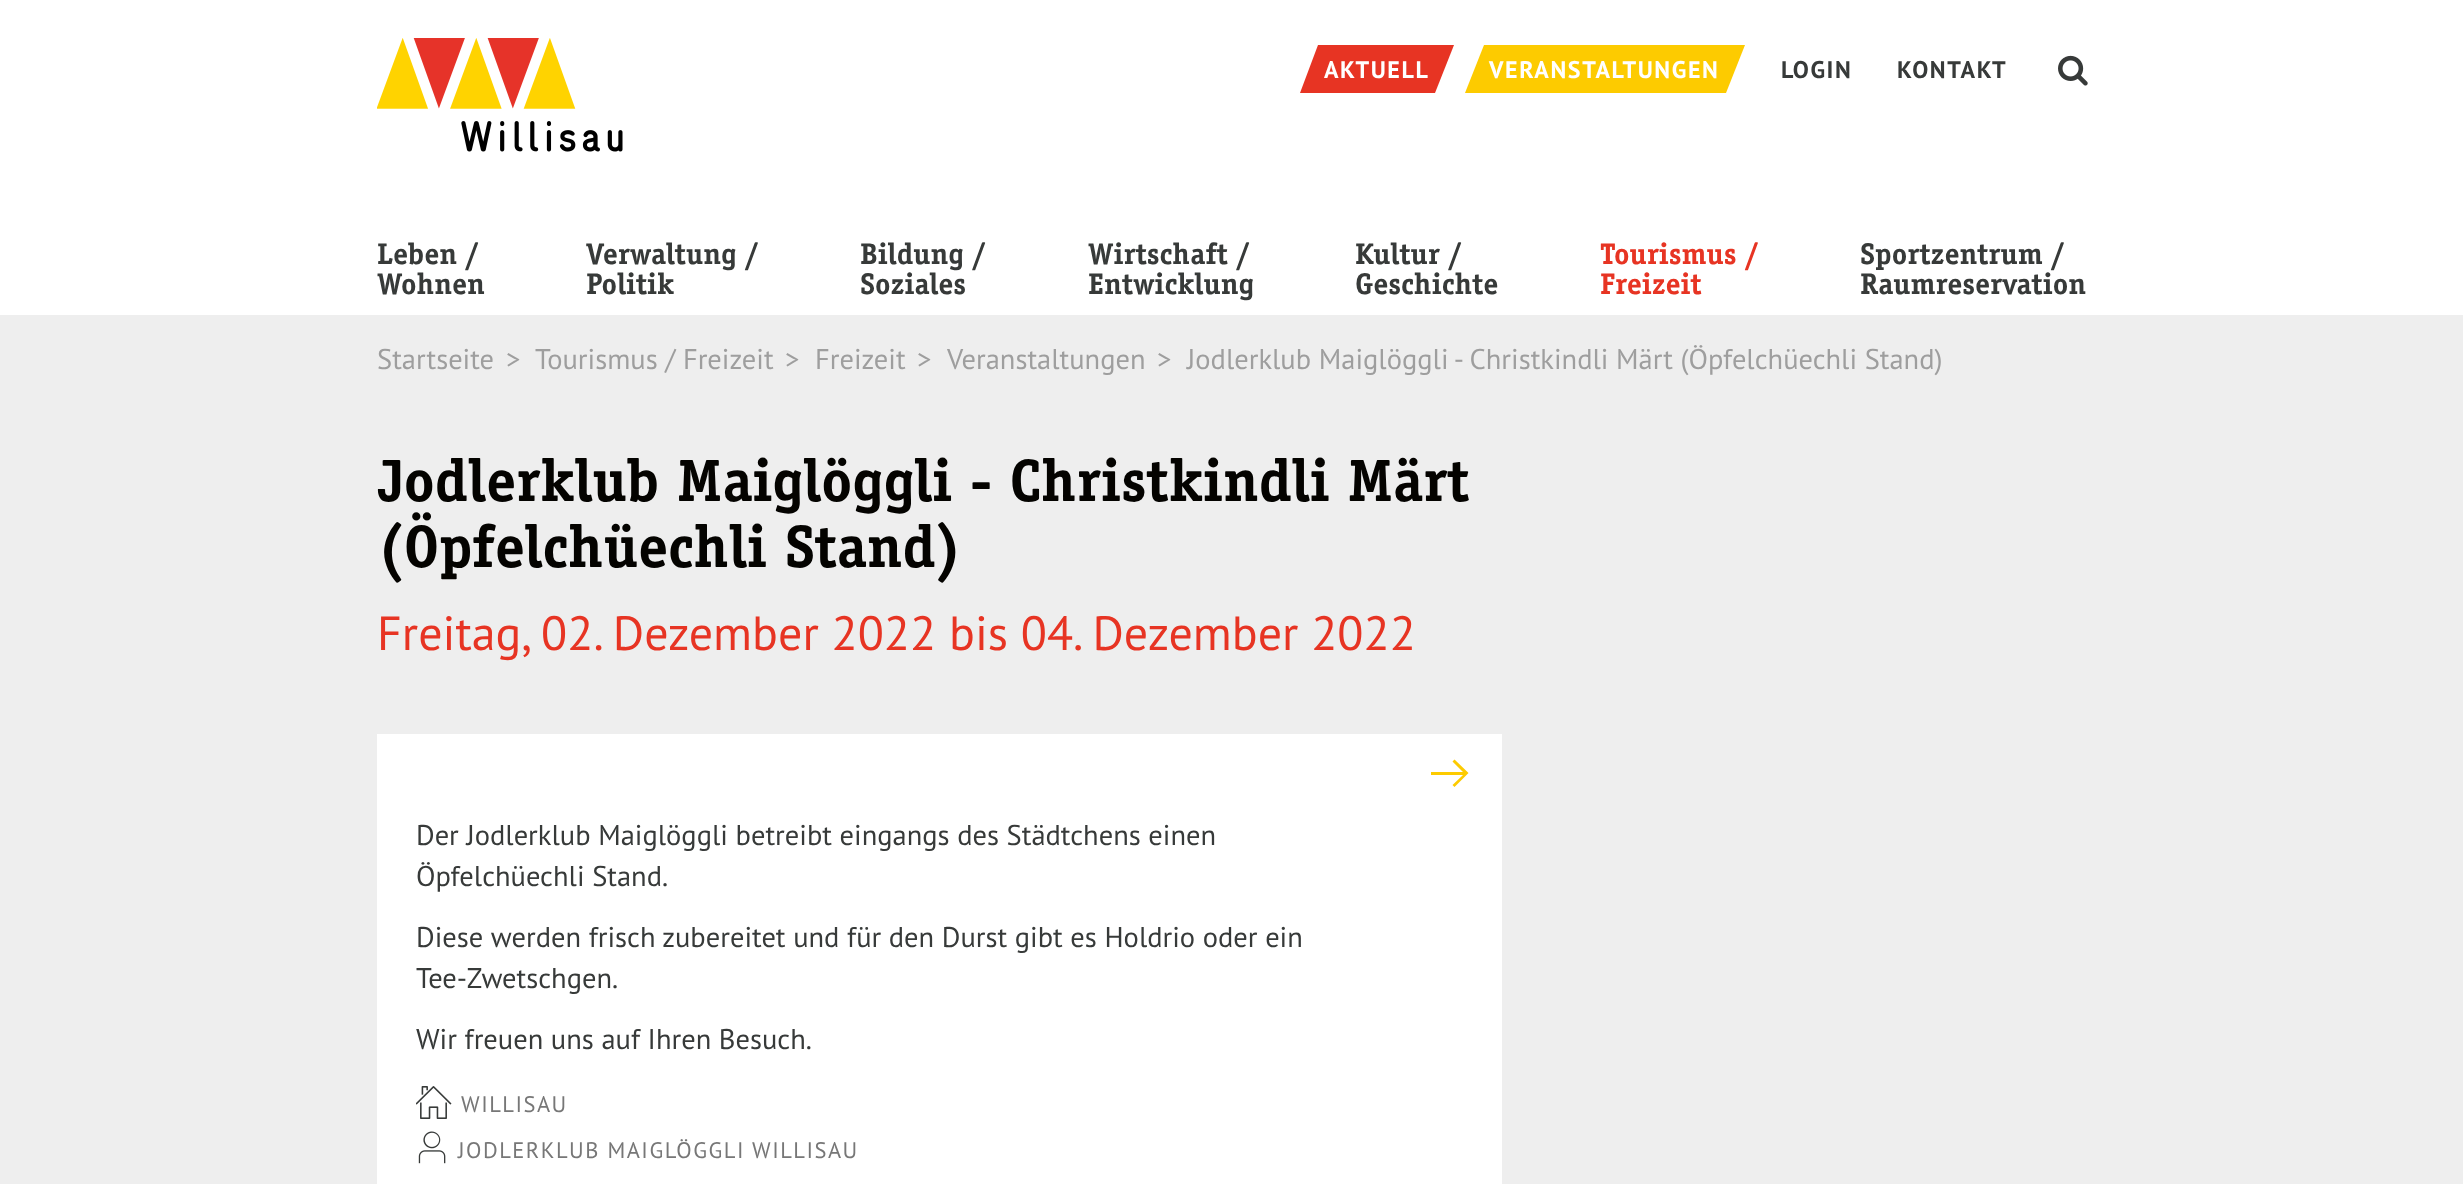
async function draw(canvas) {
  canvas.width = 2463
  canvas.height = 1184
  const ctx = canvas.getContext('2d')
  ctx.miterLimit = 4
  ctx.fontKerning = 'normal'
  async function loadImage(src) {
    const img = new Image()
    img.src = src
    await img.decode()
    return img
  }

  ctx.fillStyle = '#eee'
  ctx.fillRect(0, 0, 2463, 1184)
  ctx.fillStyle = '#fff'
  ctx.fillRect(0, 0, 2463, 315)
  ctx.drawImage(await loadImage('image0.png'), 377, 38, 246, 114)
  ctx.fillStyle = '#e73423'
  ctx.beginPath()
  ctx.moveTo(1318, 45)
  ctx.lineTo(1454, 45)
  ctx.lineTo(1435, 93)
  ctx.lineTo(1300, 93)
  ctx.closePath()
  ctx.fill()
  ctx.letterSpacing = '1.6px'
  ctx.font = 'bold 24px PT Sans'
  ctx.fillStyle = '#fff'
  ctx.fillText('AKTUELL', 1324, 78)
  ctx.fillStyle = '#fdcb00'
  ctx.beginPath()
  ctx.moveTo(1484, 45)
  ctx.lineTo(1745, 45)
  ctx.lineTo(1726, 93)
  ctx.lineTo(1465, 93)
  ctx.closePath()
  ctx.fill()
  ctx.fillStyle = '#fff'
  ctx.fillText('VERANSTALTUNGEN', 1489, 78)
  ctx.fillStyle = '#373a39'
  ctx.fillText('LOGIN', 1781, 78)
  ctx.fillText('KONTAKT', 1897, 78)
  ctx.drawImage(await loadImage('image1.png'), 2058, 55, 30, 31)
  ctx.letterSpacing = '0px'
  ctx.font = 'bold 30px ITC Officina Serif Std'
  ctx.fillText('Leben /', 377, 264)
  ctx.fillText('Wohnen', 377, 294)
  ctx.fillText('Verwaltung /', 586, 264)
  ctx.fillText('Politik', 586, 294)
  ctx.fillText('Bildung /', 860, 264)
  ctx.fillText('Soziales', 860, 294)
  ctx.fillText('Wirtschaft /', 1088, 264)
  ctx.fillText('Entwicklung', 1088, 294)
  ctx.fillText('Kultur /', 1355, 264)
  ctx.fillText('Geschichte', 1355, 294)
  ctx.fillStyle = '#e73423'
  ctx.fillText('Tourismus /', 1600, 264)
  ctx.fillText('Freizeit', 1600, 294)
  ctx.fillStyle = '#373a39'
  ctx.fillText('Sportzentrum /', 1860, 264)
  ctx.fillText('Raumreservation', 1860, 294)
  ctx.font = '28.5px PT Sans'
  ctx.fillStyle = '#9e9e9e'
  ctx.fillText('Startseite', 377, 369)
  ctx.fillText('>', 506, 369)
  ctx.fillText('Tourismus / Freizeit', 535, 369)
  ctx.fillText('>', 785, 369)
  ctx.fillText('Freizeit', 815, 369)
  ctx.fillText('>', 917, 369)
  ctx.fillText('Veranstaltungen', 947, 369)
  ctx.fillText('>', 1157, 369)
  ctx.fillText('Jodlerklub Maiglöggli - Christkindli Märt (Öpfelchüechli Stand)', 1187, 369)
  ctx.font = 'bold 60px ITC Officina Serif Std'
  ctx.fillStyle = '#040300'
  ctx.fillText('Jodlerklub Maiglöggli - Christkindli Märt', 377, 501)
  ctx.fillText('(Öpfelchüechli Stand)', 377, 567)
  ctx.font = '48px PT Sans'
  ctx.fillStyle = '#e73423'
  ctx.fillText('Freitag, 02. Dezember 2022 bis 04. Dezember 2022', 377, 650)
  ctx.fillStyle = '#fff'
  ctx.fillRect(377, 734, 1125, 450)
  ctx.fillStyle = '#fdcb00'
  ctx.beginPath()
  ctx.moveTo(1454.5, 759.5)
  ctx.lineTo(1452.5, 761.5)
  ctx.lineTo(1463, 772)
  ctx.lineTo(1431, 772)
  ctx.lineTo(1431, 775)
  ctx.lineTo(1463, 775)
  ctx.lineTo(1452.5, 785)
  ctx.lineTo(1454.5, 787)
  ctx.lineTo(1468.5, 773)
  ctx.closePath()
  ctx.fill()
  ctx.font = '28.5px PT Sans'
  ctx.fillStyle = '#373a39'
  ctx.fillText('Der Jodlerklub Maiglöggli betreibt eingangs des Städtchens einen', 416, 845)
  ctx.fillText('Öpfelchüechli Stand.', 416, 886)
  ctx.fillText('Diese werden frisch zubereitet und für den Durst gibt es Holdrio oder ein', 416, 947)
  ctx.fillText('Tee-Zwetschgen.', 416, 988)
  ctx.fillText('Wir freuen uns auf Ihren Besuch.', 416, 1049)
  ctx.drawImage(await loadImage('image2.png'), 416, 1086, 36, 33)
  ctx.letterSpacing = '1.5px'
  ctx.font = '22.5px PT Sans'
  ctx.fillStyle = '#777'
  ctx.fillText('WILLISAU', 461, 1112)
  ctx.drawImage(await loadImage('image3.png'), 418, 1131, 28, 33)
  ctx.fillText('JODLERKLUB MAIGLÖGGLI WILLISAU', 458, 1158)
}

draw(document.querySelector('canvas'))
